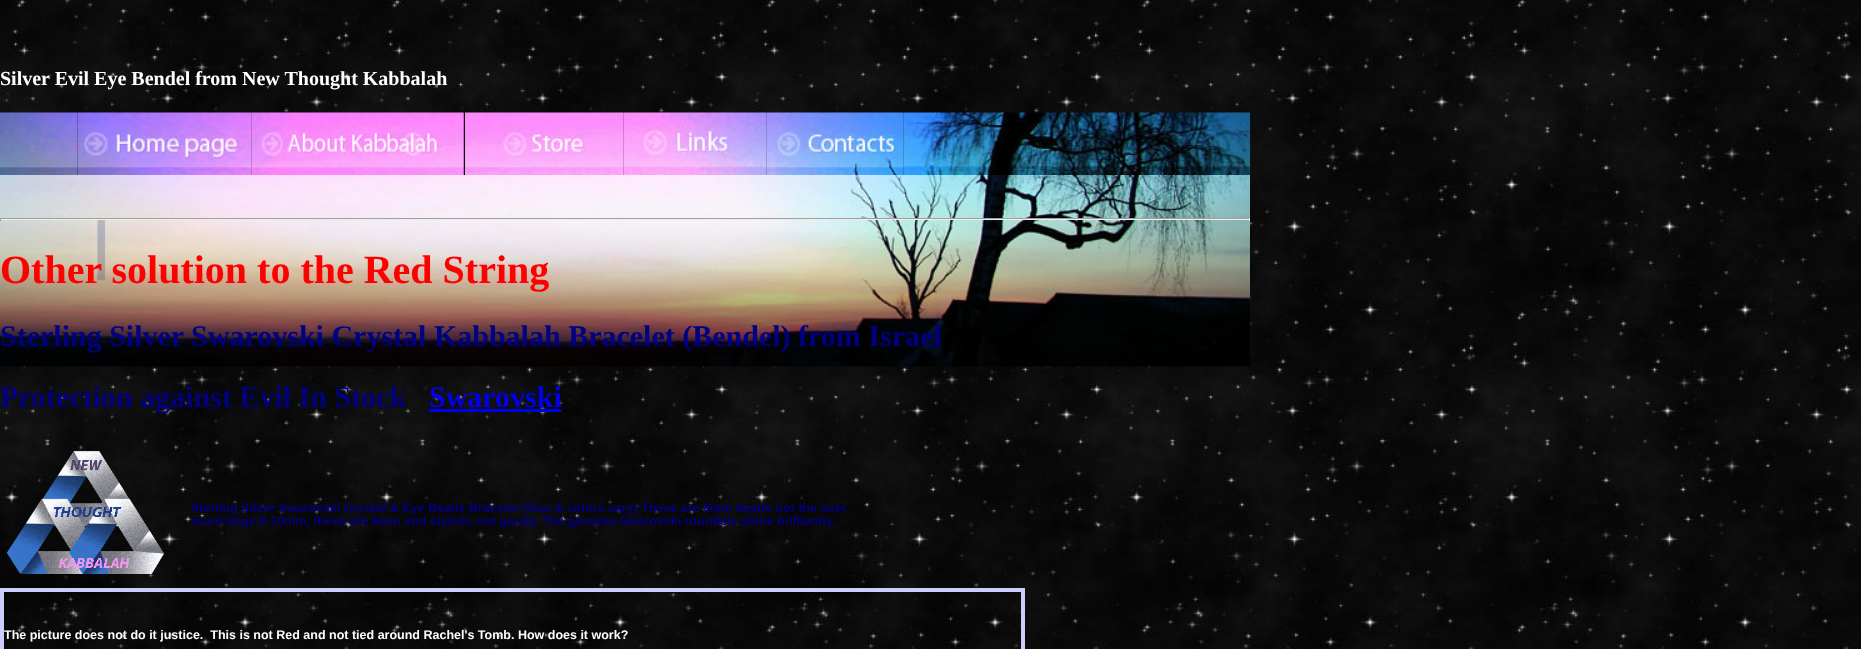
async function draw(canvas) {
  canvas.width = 1861
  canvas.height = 649
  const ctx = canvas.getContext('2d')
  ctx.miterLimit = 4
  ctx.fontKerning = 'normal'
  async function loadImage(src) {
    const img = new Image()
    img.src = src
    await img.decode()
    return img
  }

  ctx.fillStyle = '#fff'
  ctx.fillRect(0, 0, 1861, 649)
  ctx.drawImage(await loadImage('image0.png'), 0, 0, 1861, 649)
  ctx.font = 'bold 20px Liberation Serif'
  ctx.fillText('Silver Evil Eye Bendel from New Thought Kabbalah', 0, 85)
  ctx.drawImage(await loadImage('image1.png'), 0, 112, 78, 63)
  ctx.drawImage(await loadImage('image2.png'), 77, 112, 175, 63)
  ctx.drawImage(await loadImage('image3.png'), 251, 112, 213, 63)
  ctx.drawImage(await loadImage('image4.png'), 465, 112, 159, 63)
  ctx.drawImage(await loadImage('image5.png'), 623, 112, 144, 63)
  ctx.drawImage(await loadImage('image6.png'), 766, 112, 138, 63)
  ctx.drawImage(await loadImage('image7.png'), 903, 112, 347, 63)
  ctx.drawImage(await loadImage('image8.png'), 0, 175, 1250, 192)
  ctx.fillStyle = '#9f9f9f'
  ctx.fillRect(0, 218, 1250, 1)
  ctx.fillStyle = '#eee'
  ctx.fillRect(1249, 218, 1, 3)
  ctx.fillRect(0, 219, 1250, 1)
  ctx.fillStyle = '#9f9f9f'
  ctx.fillRect(0, 218, 1, 3)
  ctx.font = 'bold 40px Liberation Serif'
  ctx.fillStyle = '#f00'
  ctx.fillText('Other solution to the Red String', 0, 283)
  ctx.font = 'bold 30px Liberation Serif'
  ctx.fillStyle = '#000080'
  ctx.fillText('Sterling Silver Swarovski Crystal Kabbalah Bracelet (Bendel) from Israel', 0, 346)
  ctx.fillText('Protection against Evil In Stock', 0, 407)
  ctx.fillStyle = '#00e'
  ctx.fillText('Swarovski', 429, 407)
  ctx.fillRect(429, 409, 132, 3)
  ctx.drawImage(await loadImage('image9.png'), 6, 450, 159, 124)
  ctx.font = 'bold 12.5px Liberation Sans'
  ctx.fillStyle = '#000080'
  ctx.fillText('Sterling Silver Swarovski Crystal & Eye Beads Bracelet (Size & colors vary) These are 6mm beads not the over', 191, 512)
  ctx.fillText('sized large 8-10mm, these are 6mm and stylish, not gaudy. The genuine Swarovski roundels shine brilliantly.', 191, 525)
  ctx.fillStyle = '#ccf'
  ctx.fillRect(0, 588, 1025, 4)
  ctx.fillRect(1021, 588, 4, 61)
  ctx.fillRect(0, 588, 4, 61)
  ctx.fillStyle = '#fff'
  ctx.fillText('The picture does not do it justice.  This is not Red and not tied around Rachel\'s Tomb. How does it work?', 4, 639)
}

draw(document.querySelector('canvas'))
